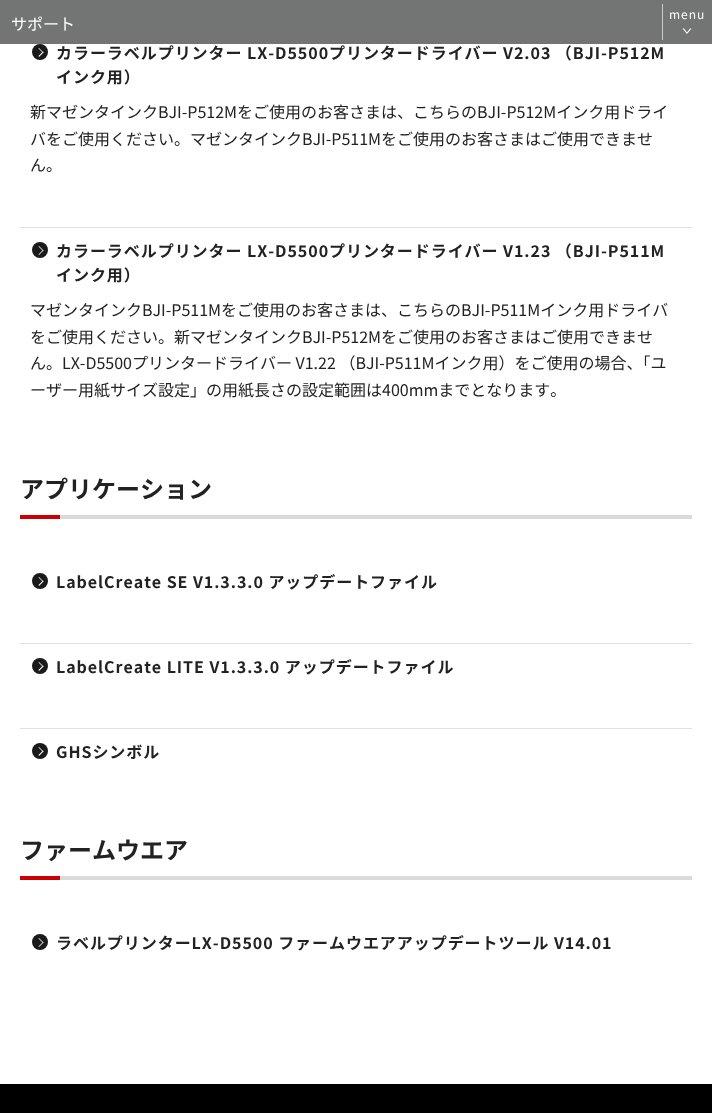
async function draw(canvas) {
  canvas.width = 712
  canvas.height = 1113
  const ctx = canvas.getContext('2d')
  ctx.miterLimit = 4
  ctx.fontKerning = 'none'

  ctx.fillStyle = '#fff'
  ctx.fillRect(0, 0, 712, 1113)
  ctx.fillStyle = '#737575'
  ctx.fillRect(0, 0, 712, 44)
  ctx.font = '16px Noto Sans JP'
  ctx.fillStyle = '#fff'
  ctx.fillText('サポート', 11, 30)
  ctx.fillStyle = '#cacaca'
  ctx.fillRect(662, 4, 1, 36)
  ctx.letterSpacing = '1px'
  ctx.font = '12px Noto Sans JP'
  ctx.fillStyle = '#fff'
  ctx.fillText('menu', 669, 19)
  ctx.beginPath()
  ctx.moveTo(691.5, 28.5)
  ctx.lineTo(687, 34)
  ctx.lineTo(687, 32.5)
  ctx.lineTo(690, 28.5)
  ctx.closePath()
  ctx.moveTo(687, 34)
  ctx.lineTo(682.5, 28.5)
  ctx.lineTo(684, 28.5)
  ctx.lineTo(687, 32.5)
  ctx.closePath()
  ctx.fill()
  ctx.fillStyle = '#1a1a1a'
  ctx.beginPath()
  ctx.arc(40, 52, 8, 0, 2 * Math.PI)
  ctx.fill()
  ctx.letterSpacing = '0.95px'
  ctx.font = 'bold 16px Noto Sans JP'
  ctx.fillStyle = '#222'
  ctx.fillText('カラーラベルプリンター LX-D5500プリンタードライバー V2.03 （BJI-P512M', 56, 59)
  ctx.fillStyle = '#fff'
  ctx.beginPath()
  ctx.moveTo(39, 48)
  ctx.lineTo(43.5, 52.5)
  ctx.lineTo(43, 53)
  ctx.lineTo(38.5, 48.5)
  ctx.closePath()
  ctx.fill()
  ctx.beginPath()
  ctx.moveTo(43, 51.5)
  ctx.lineTo(43.5, 52.5)
  ctx.lineTo(39, 57)
  ctx.lineTo(38.5, 56)
  ctx.closePath()
  ctx.fill()
  ctx.fillStyle = '#222'
  ctx.fillText('インク用）', 56, 83)
  ctx.letterSpacing = '0px'
  ctx.font = '16px Noto Sans JP'
  ctx.fillText('新マゼンタインクBJI-P512Mをご使用のお客さまは、こちらのBJI-P512Mインク用ドライ', 30, 118)
  ctx.fillText('バをご使用ください。マゼンタインクBJI-P511Mをご使用のお客さまはご使用できませ', 30, 145)
  ctx.fillText('ん。', 30, 171)
  ctx.fillStyle = '#e1e1e1'
  ctx.fillRect(20, 227, 672, 1)
  ctx.fillStyle = '#1a1a1a'
  ctx.beginPath()
  ctx.arc(40, 250, 8, 0, 2 * Math.PI)
  ctx.fill()
  ctx.letterSpacing = '0.95px'
  ctx.font = 'bold 16px Noto Sans JP'
  ctx.fillStyle = '#222'
  ctx.fillText('カラーラベルプリンター LX-D5500プリンタードライバー V1.23 （BJI-P511M', 56, 257)
  ctx.fillStyle = '#fff'
  ctx.beginPath()
  ctx.moveTo(39, 246)
  ctx.lineTo(43.5, 250.5)
  ctx.lineTo(43, 251)
  ctx.lineTo(38.5, 246.5)
  ctx.closePath()
  ctx.fill()
  ctx.beginPath()
  ctx.moveTo(43, 250)
  ctx.lineTo(43.5, 250.5)
  ctx.lineTo(39, 255)
  ctx.lineTo(38.5, 254.5)
  ctx.closePath()
  ctx.fill()
  ctx.fillStyle = '#222'
  ctx.fillText('インク用）', 56, 281)
  ctx.letterSpacing = '0px'
  ctx.font = '16px Noto Sans JP'
  ctx.fillText('マゼンタインクBJI-P511Mをご使用のお客さまは、こちらのBJI-P511Mインク用ドライバ', 30, 316)
  ctx.fillText('をご使用ください。新マゼンタインクBJI-P512Mをご使用のお客さまはご使用できませ', 30, 343)
  ctx.fillText('ん。LX-D5500プリンタードライバー V1.22 （BJI-P511Mインク用）をご使用の場合、「ユ', 30, 369)
  ctx.fillText('ーザー用紙サイズ設定」の用紙長さの設定範囲は400mmまでとなります。', 30, 396)
  ctx.font = 'bold 24px Noto Sans JP'
  ctx.fillText('アプリケーション', 20, 498)
  ctx.fillStyle = '#c00'
  ctx.fillRect(20, 515, 40, 4)
  ctx.fillStyle = '#dbdbdb'
  ctx.fillRect(60, 515, 632, 4)
  ctx.fillStyle = '#1a1a1a'
  ctx.beginPath()
  ctx.arc(40, 581, 8, 0, 2 * Math.PI)
  ctx.fill()
  ctx.letterSpacing = '0.95px'
  ctx.font = 'bold 16px Noto Sans JP'
  ctx.fillStyle = '#222'
  ctx.fillText('LabelCreate SE V1.3.3.0 アップデートファイル', 56, 588)
  ctx.fillStyle = '#fff'
  ctx.beginPath()
  ctx.moveTo(39, 577)
  ctx.lineTo(43.5, 581.5)
  ctx.lineTo(43, 582)
  ctx.lineTo(38.5, 577.5)
  ctx.closePath()
  ctx.fill()
  ctx.beginPath()
  ctx.moveTo(43, 580.5)
  ctx.lineTo(43.5, 581.5)
  ctx.lineTo(39, 586)
  ctx.lineTo(38.5, 585)
  ctx.closePath()
  ctx.fill()
  ctx.fillStyle = '#e1e1e1'
  ctx.fillRect(20, 643, 672, 1)
  ctx.fillStyle = '#1a1a1a'
  ctx.beginPath()
  ctx.arc(40, 666, 8, 0, 2 * Math.PI)
  ctx.fill()
  ctx.fillStyle = '#222'
  ctx.fillText('LabelCreate LITE V1.3.3.0 アップデートファイル', 56, 673)
  ctx.fillStyle = '#fff'
  ctx.beginPath()
  ctx.moveTo(39, 662)
  ctx.lineTo(43.5, 666.5)
  ctx.lineTo(43, 667)
  ctx.lineTo(38.5, 662.5)
  ctx.closePath()
  ctx.fill()
  ctx.beginPath()
  ctx.moveTo(43, 665.5)
  ctx.lineTo(43.5, 666.5)
  ctx.lineTo(39, 671)
  ctx.lineTo(38.5, 670)
  ctx.closePath()
  ctx.fill()
  ctx.fillStyle = '#e1e1e1'
  ctx.fillRect(20, 728, 672, 1)
  ctx.fillStyle = '#1a1a1a'
  ctx.beginPath()
  ctx.arc(40, 751, 8, 0, 2 * Math.PI)
  ctx.fill()
  ctx.fillStyle = '#222'
  ctx.fillText('GHSシンボル', 56, 758)
  ctx.fillStyle = '#fff'
  ctx.beginPath()
  ctx.moveTo(39, 747)
  ctx.lineTo(43.5, 751.5)
  ctx.lineTo(43, 752)
  ctx.lineTo(38.5, 747.5)
  ctx.closePath()
  ctx.fill()
  ctx.beginPath()
  ctx.moveTo(43, 750.5)
  ctx.lineTo(43.5, 751.5)
  ctx.lineTo(39, 756)
  ctx.lineTo(38.5, 755)
  ctx.closePath()
  ctx.fill()
  ctx.letterSpacing = '0px'
  ctx.font = 'bold 24px Noto Sans JP'
  ctx.fillStyle = '#222'
  ctx.fillText('ファームウエア', 20, 859)
  ctx.fillStyle = '#c00'
  ctx.fillRect(20, 876, 40, 4)
  ctx.fillStyle = '#dbdbdb'
  ctx.fillRect(60, 876, 632, 4)
  ctx.fillStyle = '#1a1a1a'
  ctx.beginPath()
  ctx.arc(40, 942, 8, 0, 2 * Math.PI)
  ctx.fill()
  ctx.letterSpacing = '0.95px'
  ctx.font = 'bold 16px Noto Sans JP'
  ctx.fillStyle = '#222'
  ctx.fillText('ラベルプリンターLX-D5500 ファームウエアアップデートツール V14.01', 56, 949)
  ctx.fillStyle = '#fff'
  ctx.beginPath()
  ctx.moveTo(39, 938)
  ctx.lineTo(43.5, 942.5)
  ctx.lineTo(43, 943)
  ctx.lineTo(38.5, 938.5)
  ctx.closePath()
  ctx.fill()
  ctx.beginPath()
  ctx.moveTo(43, 942)
  ctx.lineTo(43.5, 942.5)
  ctx.lineTo(39, 947)
  ctx.lineTo(38.5, 946.5)
  ctx.closePath()
  ctx.fill()
  ctx.fillStyle = '#000'
  ctx.fillRect(0, 1084, 712, 29)
}

draw(document.querySelector('canvas'))
